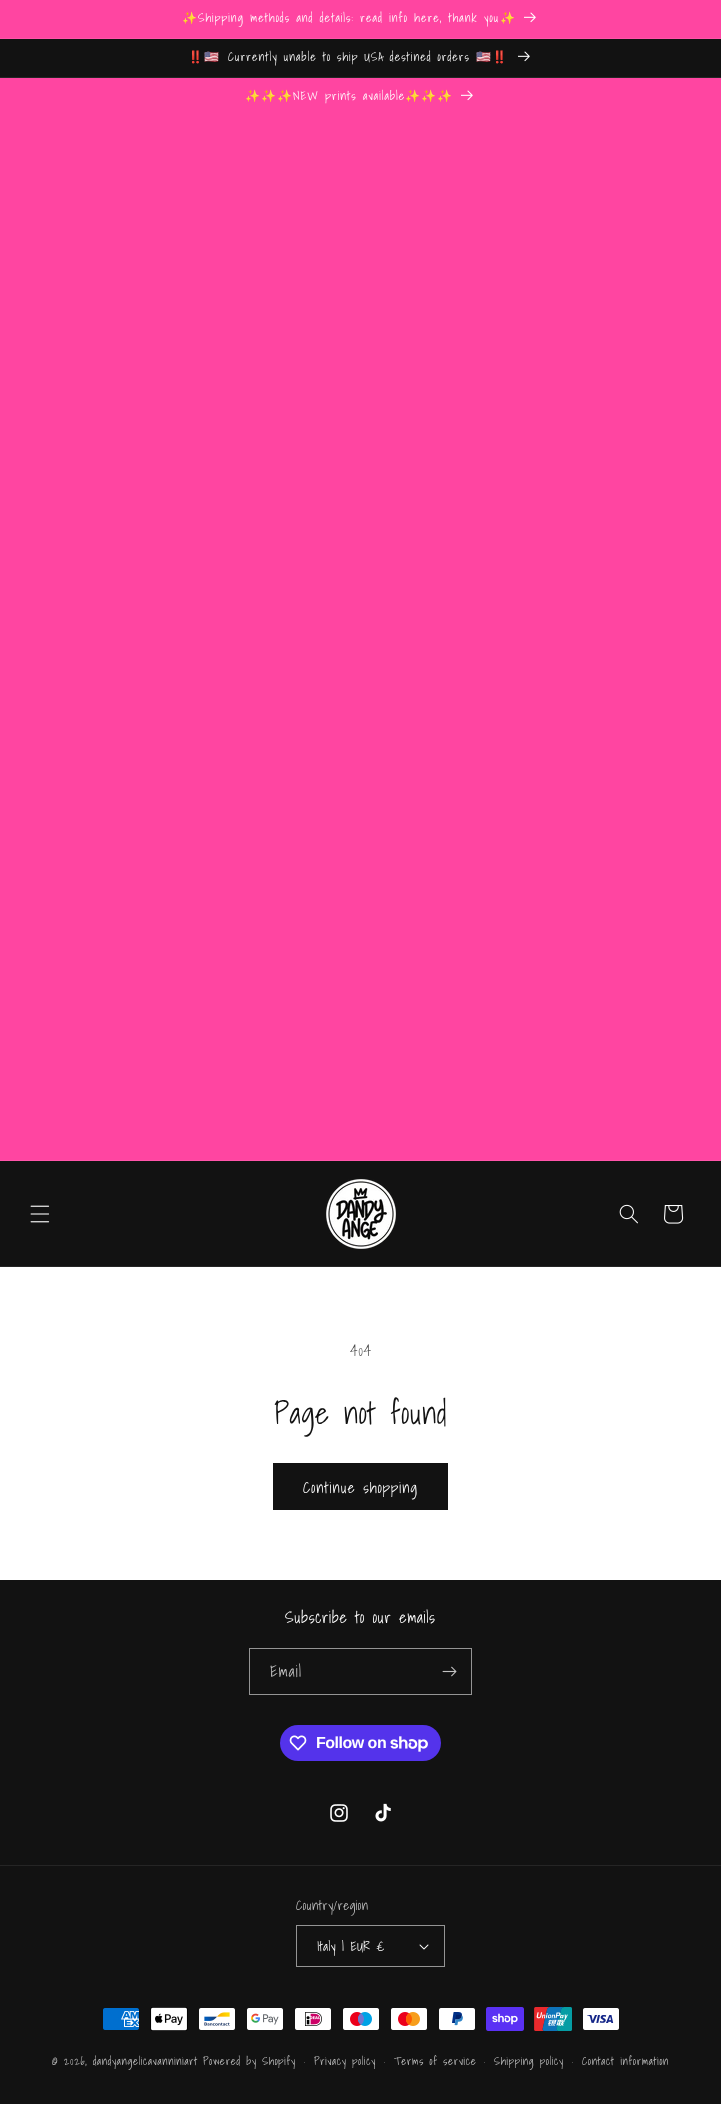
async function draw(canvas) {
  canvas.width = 721
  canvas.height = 2104
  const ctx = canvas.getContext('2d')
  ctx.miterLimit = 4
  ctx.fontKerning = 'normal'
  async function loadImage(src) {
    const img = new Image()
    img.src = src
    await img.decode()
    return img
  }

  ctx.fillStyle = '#fff'
  ctx.fillRect(0, 0, 721, 2104)
  ctx.fillStyle = '#ff45a1'
  ctx.fillRect(0, 0, 721, 38)
  ctx.fillStyle = '#ff54a9'
  ctx.fillRect(0, 38, 721, 1)
  ctx.letterSpacing = '1px'
  ctx.font = '12px Noto Color Emoji'
  ctx.fillStyle = '#fff'
  ctx.fillText('✨', 182, 22)
  ctx.font = '12px Shadows Into Light'
  ctx.fillText('Shipping methods and details: read info here, thank you', 198, 22)
  ctx.font = '12px Noto Color Emoji'
  ctx.fillText('✨', 500, 22)
  ctx.drawImage(await loadImage('image0.png'), 524, 12, 12, 11)
  ctx.fillStyle = '#121212'
  ctx.fillRect(0, 39, 721, 38)
  ctx.fillStyle = '#252525'
  ctx.fillRect(0, 77, 721, 1)
  ctx.fillStyle = '#fff'
  ctx.fillText('‼️🇺🇸', 188, 61)
  ctx.wordSpacing = '-0.5px'
  ctx.font = '12px Shadows Into Light'
  ctx.fillText('Currently unable to ship USA destined orders', 228, 61)
  ctx.wordSpacing = '0px'
  ctx.font = '12px Noto Color Emoji'
  ctx.fillText('🇺🇸‼️', 476, 61)
  ctx.drawImage(await loadImage('image1.png'), 518, 51, 12, 11)
  ctx.fillStyle = '#ff45a1'
  ctx.fillRect(0, 78, 721, 1082)
  ctx.fillStyle = '#ff54a9'
  ctx.fillRect(0, 1160, 721, 1)
  ctx.fillStyle = '#fff'
  ctx.fillText('✨✨✨', 245, 100)
  ctx.font = '12px Shadows Into Light'
  ctx.fillText('NEW prints available', 293, 100)
  ctx.font = '12px Noto Color Emoji'
  ctx.fillText('✨✨✨', 405, 100)
  ctx.drawImage(await loadImage('image0.png'), 461, 90, 12, 11)
  ctx.fillStyle = '#121212'
  ctx.fillRect(0, 1161, 721, 105)
  ctx.fillStyle = '#252525'
  ctx.fillRect(0, 1266, 721, 1)
  ctx.drawImage(await loadImage('image2.png'), 30, 1205, 20, 18)
  ctx.drawImage(await loadImage('image3.png'), 326, 1179, 70, 70)
  ctx.drawImage(await loadImage('image4.png'), 619, 1204, 19, 20)
  ctx.drawImage(await loadImage('image5.png'), 664, 1205, 20, 19)
  ctx.letterSpacing = '0.6px'
  ctx.font = '15px Shadows Into Light'
  ctx.fillStyle = '#4d4d4d'
  ctx.fillText('404', 350, 1356)
  ctx.font = '30px Shadows Into Light'
  ctx.fillStyle = '#121212'
  ctx.fillText('Page not found', 274, 1424)
  ctx.fillRect(273, 1463, 175, 47)
  ctx.letterSpacing = '1px'
  ctx.font = '15px Shadows Into Light'
  ctx.fillStyle = '#fff'
  ctx.fillText('Continue shopping', 303, 1493)
  ctx.fillStyle = '#121212'
  ctx.fillRect(0, 1580, 721, 524)
  ctx.letterSpacing = '0.6px'
  ctx.font = '16px Shadows Into Light'
  ctx.fillStyle = '#fff'
  ctx.fillText('Subscribe to our emails', 285, 1623)
  ctx.strokeStyle = '#949494'
  ctx.strokeRect(249.5, 1648.5, 222, 46)
  ctx.letterSpacing = '1px'
  ctx.fillStyle = '#c4c4c4'
  ctx.fillText('Email', 270, 1677)
  ctx.drawImage(await loadImage('image6.png'), 442, 1666, 15, 11)
  ctx.fillStyle = '#5433eb'
  ctx.beginPath()
  ctx.roundRect(280, 1725, 161, 36, 18)
  ctx.fill()
  ctx.drawImage(await loadImage('image7.png'), 289, 1735, 18, 16)
  ctx.letterSpacing = '-0.5px'
  ctx.font = 'bold 16px Liberation Sans'
  ctx.fillStyle = '#fff'
  ctx.fillText('Follow on', 316, 1748)
  ctx.drawImage(await loadImage('image8.png'), 390, 1736, 38, 16)
  ctx.drawImage(await loadImage('image9.png'), 330, 1804, 18, 18)
  ctx.drawImage(await loadImage('image10.png'), 375, 1803, 16, 19)
  ctx.fillStyle = '#252525'
  ctx.fillRect(0, 1865, 721, 1)
  ctx.letterSpacing = '0.4px'
  ctx.font = '13px Shadows Into Light'
  ctx.fillStyle = '#c4c4c4'
  ctx.fillText('Country/region', 296, 1910)
  ctx.drawImage(await loadImage('image11.png'), 419, 1944, 10, 6)
  ctx.strokeRect(296.5, 1925.5, 148, 41)
  ctx.fillStyle = '#fff'
  ctx.fillText('Italy | EUR €', 317, 1951)
  ctx.drawImage(await loadImage('image12.png'), 103, 2008, 36, 22)
  ctx.drawImage(await loadImage('image13.png'), 150, 2007, 38, 24)
  ctx.drawImage(await loadImage('image14.png'), 199, 2008, 36, 22)
  ctx.drawImage(await loadImage('image15.png'), 247, 2008, 36, 22)
  ctx.drawImage(await loadImage('image16.png'), 295, 2008, 36, 22)
  ctx.drawImage(await loadImage('image17.png'), 343, 2008, 36, 22)
  ctx.drawImage(await loadImage('image18.png'), 391, 2008, 36, 22)
  ctx.drawImage(await loadImage('image19.png'), 439, 2008, 36, 22)
  ctx.drawImage(await loadImage('image20.png'), 486, 2007, 38, 24)
  ctx.drawImage(await loadImage('image21.png'), 534, 2007, 38, 24)
  ctx.drawImage(await loadImage('image22.png'), 583, 2008, 36, 22)
  ctx.letterSpacing = '0.7px'
  ctx.font = '11px Shadows Into Light'
  ctx.fillStyle = '#c4c4c4'
  ctx.fillText('© 2026, dandyangelicavanniniart', 52, 2065)
  ctx.fillText('Powered by Shopify', 203, 2065)
  ctx.font = '10px Shadows Into Light'
  ctx.fillText('·', 304, 2065)
  ctx.font = '11px Shadows Into Light'
  ctx.fillText('Privacy policy', 314, 2065)
  ctx.font = '10px Shadows Into Light'
  ctx.fillText('·', 384, 2065)
  ctx.font = '11px Shadows Into Light'
  ctx.fillText('Terms of service', 394, 2065)
  ctx.font = '10px Shadows Into Light'
  ctx.fillText('·', 484, 2065)
  ctx.font = '11px Shadows Into Light'
  ctx.fillText('Shipping policy', 494, 2065)
  ctx.font = '10px Shadows Into Light'
  ctx.fillText('·', 572, 2065)
  ctx.font = '11px Shadows Into Light'
  ctx.fillText('Contact information', 582, 2065)
}

draw(document.querySelector('canvas'))
